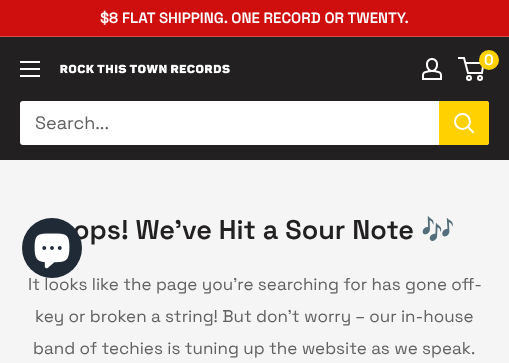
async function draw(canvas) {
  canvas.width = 509
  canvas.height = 363
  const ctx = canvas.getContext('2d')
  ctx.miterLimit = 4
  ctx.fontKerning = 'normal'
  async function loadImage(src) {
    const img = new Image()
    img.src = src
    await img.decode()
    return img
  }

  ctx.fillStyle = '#f5f5f5'
  ctx.fillRect(0, 0, 509, 363)
  ctx.fillStyle = '#cf0e0e'
  ctx.fillRect(0, 0, 509, 36)
  ctx.fillStyle = '#d74f4f'
  ctx.fillRect(0, 36, 509, 1)
  ctx.font = '600 15px Space Grotesk'
  ctx.fillStyle = '#fff'
  ctx.fillText('$8 FLAT SHIPPING. ONE RECORD OR TWENTY.', 100, 23)
  ctx.fillStyle = '#222021'
  ctx.fillRect(0, 37, 509, 123)
  ctx.drawImage(await loadImage('image0.png'), 20, 61, 20, 16)
  ctx.drawImage(await loadImage('image1.png'), 60, 64, 170, 10)
  ctx.drawImage(await loadImage('image2.png'), 422, 58, 20, 22)
  ctx.beginPath()
  ctx.arc(469, 78, 2, 0, 2 * Math.PI)
  ctx.strokeStyle = '#fff'
  ctx.lineWidth = 2
  ctx.stroke()
  ctx.beginPath()
  ctx.arc(480, 78, 2, 0, 2 * Math.PI)
  ctx.stroke()
  ctx.beginPath()
  ctx.moveTo(465.5, 63)
  ctx.lineTo(483.5, 63)
  ctx.lineTo(482, 73)
  ctx.lineTo(468, 73)
  ctx.lineTo(464, 58)
  ctx.lineTo(458, 58)
  ctx.stroke()
  ctx.fillStyle = '#ffd100'
  ctx.beginPath()
  ctx.arc(489, 60, 10, 0, 2 * Math.PI)
  ctx.fill()
  ctx.fillStyle = '#fff'
  ctx.fillText('0', 484, 65)
  ctx.beginPath()
  ctx.roundRect(20, 101, 469, 44, 3)
  ctx.fill()
  ctx.font = '18px Space Grotesk'
  ctx.fillStyle = '#616161'
  ctx.fillText('Search...', 35, 129)
  ctx.fillStyle = '#ffd100'
  ctx.beginPath()
  ctx.roundRect(439, 101, 50, 44, [0, 3, 3, 0])
  ctx.fill()
  ctx.beginPath()
  ctx.moveTo(473, 132)
  ctx.lineTo(468, 127)
  ctx.lineCap = 'square'
  ctx.stroke()
  ctx.beginPath()
  ctx.arc(462.5, 121.5, 7.5, 0, 2 * Math.PI)
  ctx.stroke()
  ctx.font = '600 27px Space Grotesk'
  ctx.fillStyle = '#222021'
  ctx.fillText('ops! We\'ve Hit a Sour Note', 73, 239)
  ctx.font = 'bold 27px Noto Color Emoji'
  ctx.fillText('🎶', 421, 239)
  ctx.font = '17px Space Grotesk'
  ctx.fillStyle = '#616161'
  ctx.fillText('It looks like the page you\'re searching for has gone off-', 28, 290)
  ctx.fillText('key or broken a string! But don\'t worry – our in-house', 35, 322)
  ctx.fillText('band of techies is tuning up the website as we speak.', 33, 354)
  ctx.fillStyle = '#202a36'
  ctx.beginPath()
  ctx.arc(52, 248, 30, 0, 2 * Math.PI)
  ctx.fill()
  ctx.drawImage(await loadImage('image3.png'), 34, 233, 36, 36)
}

draw(document.querySelector('canvas'))
